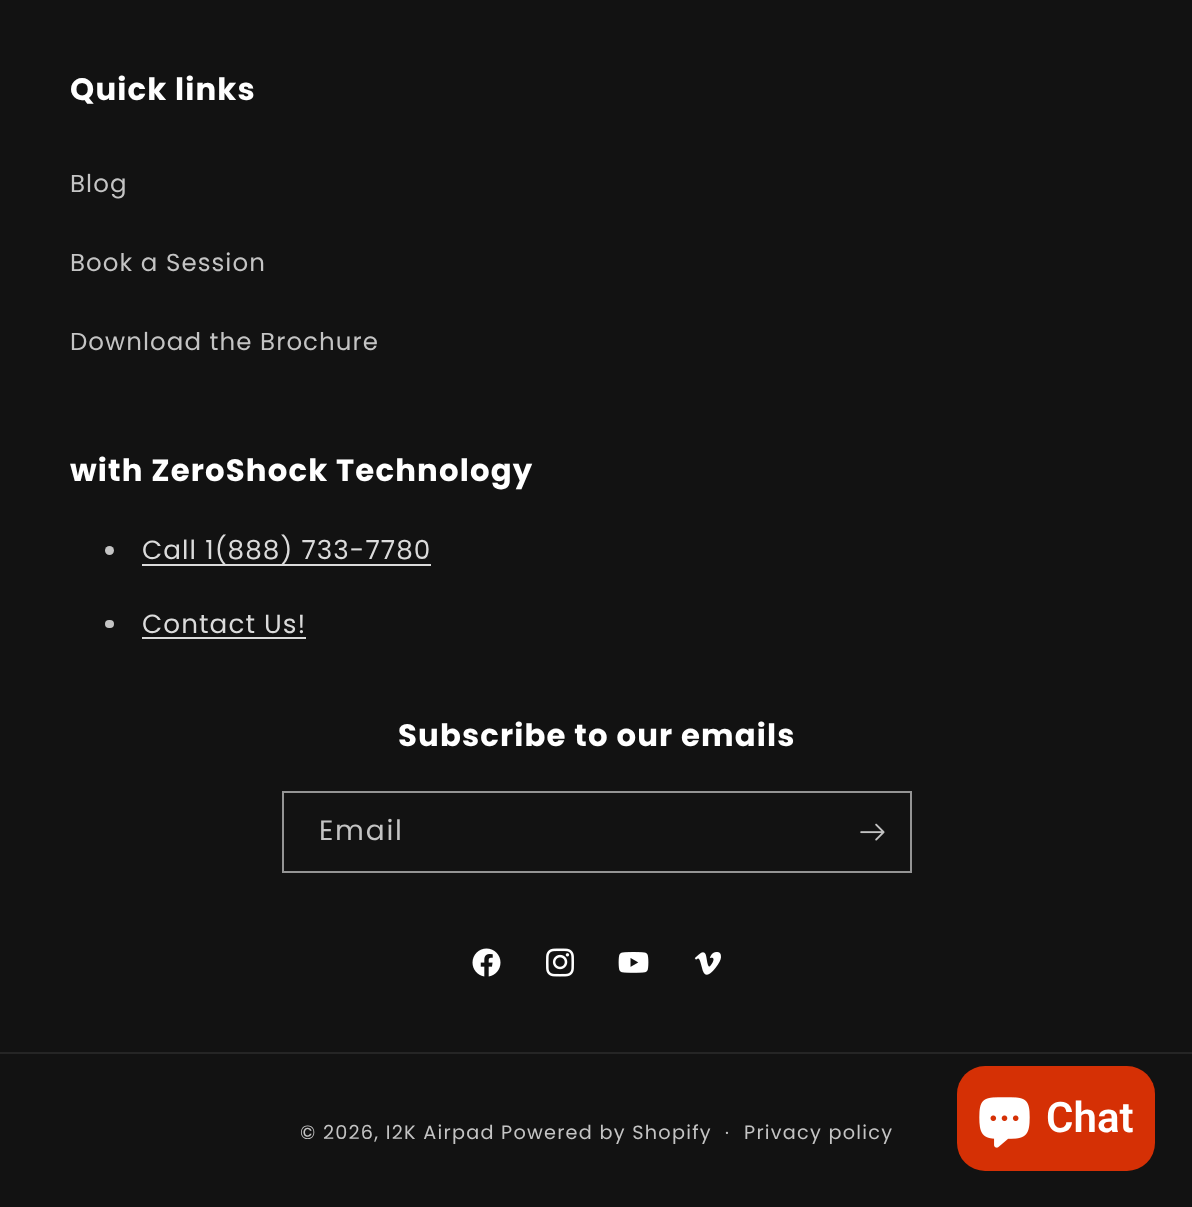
async function draw(canvas) {
  canvas.width = 1192
  canvas.height = 1207
  const ctx = canvas.getContext('2d')
  ctx.miterLimit = 4
  ctx.fontKerning = 'normal'
  async function loadImage(src) {
    const img = new Image()
    img.src = src
    await img.decode()
    return img
  }

  ctx.fillStyle = '#121212'
  ctx.fillRect(0, 0, 1192, 1207)
  ctx.letterSpacing = '1.15px'
  ctx.font = 'bold 30.75px Poppins'
  ctx.fillStyle = '#fff'
  ctx.fillText('Quick links', 70, 100)
  ctx.letterSpacing = '1.05px'
  ctx.font = '24.5px Poppins'
  ctx.fillStyle = '#c4c4c4'
  ctx.fillText('Blog', 70, 192)
  ctx.fillText('Book a Session', 70, 271)
  ctx.fillText('Download the Brochure', 70, 350)
  ctx.letterSpacing = '1.15px'
  ctx.font = 'bold 30.75px Poppins'
  ctx.fillStyle = '#fff'
  ctx.fillText('with ZeroShock Technology', 70, 481)
  ctx.fillStyle = '#c4c4c4'
  ctx.beginPath()
  ctx.arc(109.5, 550.5, 4.5, 0, 2 * Math.PI)
  ctx.fill()
  ctx.letterSpacing = '1.05px'
  ctx.font = '26.25px Poppins'
  ctx.fillStyle = '#dbdbdb'
  ctx.fillText('Call 1(888) 733-7780', 142, 559)
  ctx.fillRect(142, 564, 289, 2)
  ctx.fillStyle = '#c4c4c4'
  ctx.beginPath()
  ctx.roundRect(105, 620, 9, 8, 4)
  ctx.fill()
  ctx.fillStyle = '#dbdbdb'
  ctx.fillText('Contact Us!', 142, 633)
  ctx.fillRect(142, 637, 164, 2)
  ctx.letterSpacing = '1.15px'
  ctx.font = 'bold 30.75px Poppins'
  ctx.fillStyle = '#fff'
  ctx.fillText('Subscribe to our emails', 398, 746)
  ctx.strokeStyle = '#949494'
  ctx.lineWidth = 2
  ctx.strokeRect(283, 792, 628, 80)
  ctx.letterSpacing = '1.75px'
  ctx.font = '28px Poppins'
  ctx.fillStyle = '#c4c4c4'
  ctx.fillText('Email', 319, 840)
  ctx.drawImage(await loadImage('image0.png'), 860, 823, 25, 18)
  ctx.drawImage(await loadImage('image1.png'), 472, 948, 29, 29)
  ctx.drawImage(await loadImage('image2.png'), 546, 948, 28, 29)
  ctx.drawImage(await loadImage('image3.png'), 618, 952, 31, 21)
  ctx.drawImage(await loadImage('image4.png'), 694, 952, 27, 23)
  ctx.fillStyle = '#252525'
  ctx.fillRect(0, 1052, 1192, 2)
  ctx.letterSpacing = '1.25px'
  ctx.font = '19.25px Poppins'
  ctx.fillStyle = '#c4c4c4'
  ctx.fillText('© 2026, I2K Airpad', 300, 1139)
  ctx.fillText('Powered by Shopify', 501, 1139)
  ctx.font = '18px Poppins'
  ctx.fillText('·', 725, 1139)
  ctx.font = '19.25px Poppins'
  ctx.fillText('Privacy policy', 744, 1139)
  ctx.fillStyle = '#d53005'
  ctx.beginPath()
  ctx.roundRect(957, 1066, 198, 105, 28)
  ctx.fill()
  ctx.drawImage(await loadImage('image5.png'), 979, 1097, 51, 51)
  ctx.letterSpacing = '0px'
  ctx.font = '600 42px Roboto'
  ctx.fillStyle = '#fff'
  ctx.fillText('Chat', 1046, 1132)
}

draw(document.querySelector('canvas'))
